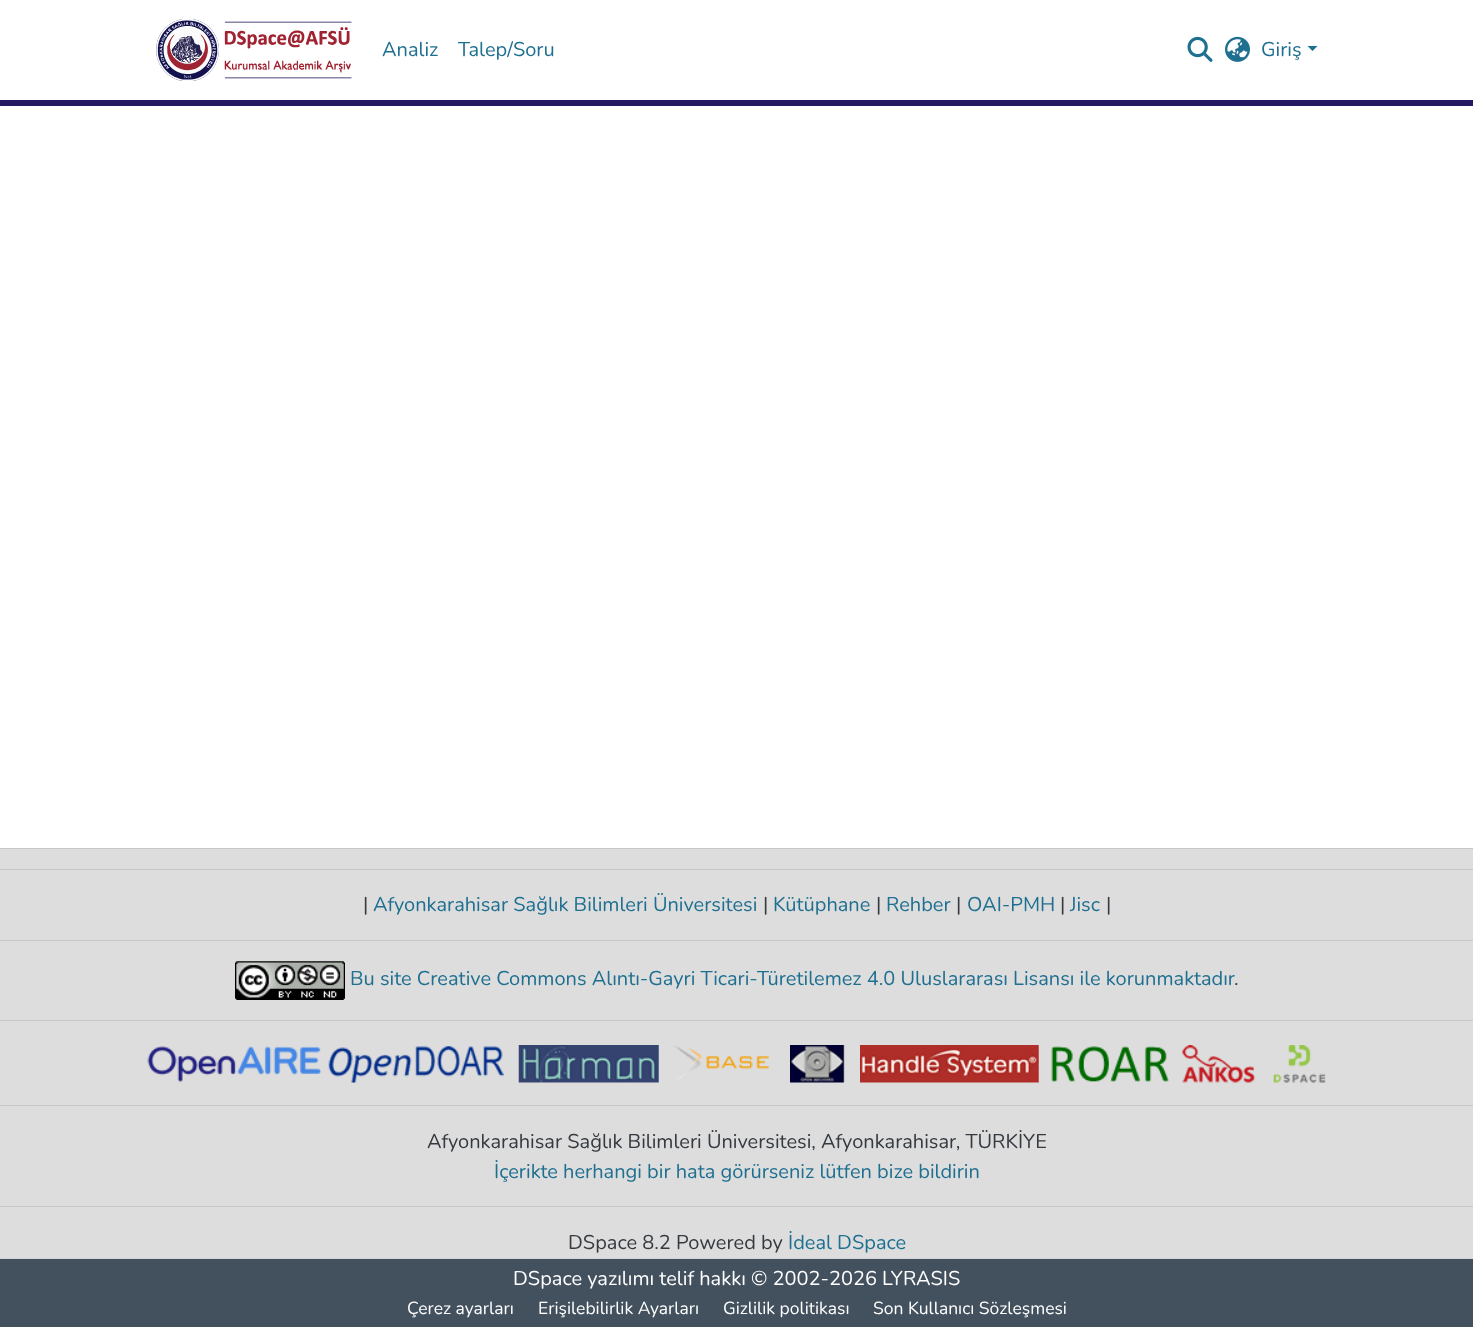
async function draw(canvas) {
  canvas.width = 1473
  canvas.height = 1327
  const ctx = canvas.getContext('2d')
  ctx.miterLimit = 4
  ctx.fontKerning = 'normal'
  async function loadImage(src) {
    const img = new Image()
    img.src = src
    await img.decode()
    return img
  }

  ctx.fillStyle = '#fff'
  ctx.fillRect(0, 0, 1473, 1327)
  ctx.fillStyle = '#241862'
  ctx.fillRect(0, 100, 1473, 6)
  ctx.drawImage(await loadImage('image0.png'), 156, 19, 196, 62)
  ctx.font = '20px Nunito'
  ctx.fillStyle = '#1e6f90'
  ctx.fillText('Analiz', 382, 56)
  ctx.fillText('Talep/Soru', 458, 56)
  ctx.drawImage(await loadImage('image1.png'), 1187, 36, 26, 26)
  ctx.drawImage(await loadImage('image2.png'), 1225, 36, 25, 26)
  ctx.fillText('Giriş', 1261, 56)
  ctx.beginPath()
  ctx.moveTo(1307.5, 46)
  ctx.lineTo(1317.5, 46)
  ctx.lineTo(1312.5, 51)
  ctx.closePath()
  ctx.fill()
  ctx.fillStyle = '#ddd'
  ctx.fillRect(0, 849, 1473, 409)
  ctx.fillStyle = '#c7c7c7'
  ctx.fillRect(0, 848, 1473, 1)
  ctx.fillRect(0, 869, 1473, 1)
  ctx.fillStyle = '#343a40'
  ctx.fillText('|', 363, 911)
  ctx.fillStyle = '#1e6f90'
  ctx.fillText('Afyonkarahisar Sağlık Bilimleri Üniversitesi', 373, 911)
  ctx.fillStyle = '#343a40'
  ctx.fillText('|', 763, 911)
  ctx.fillStyle = '#1e6f90'
  ctx.fillText('Kütüphane', 773, 911)
  ctx.fillStyle = '#343a40'
  ctx.fillText('|', 876, 911)
  ctx.fillStyle = '#1e6f90'
  ctx.fillText('Rehber', 886, 911)
  ctx.fillStyle = '#343a40'
  ctx.fillText('|', 956, 911)
  ctx.fillStyle = '#1e6f90'
  ctx.fillText('OAI-PMH', 967, 911)
  ctx.fillStyle = '#343a40'
  ctx.fillText('|', 1060, 911)
  ctx.fillStyle = '#1e6f90'
  ctx.fillText('Jisc', 1070, 911)
  ctx.fillStyle = '#343a40'
  ctx.fillText('|', 1106, 911)
  ctx.fillStyle = '#c7c7c7'
  ctx.fillRect(0, 940, 1473, 1)
  ctx.drawImage(await loadImage('image3.png'), 235, 961, 110, 39)
  ctx.fillStyle = '#1e6f90'
  ctx.fillText('Bu site Creative Commons Alıntı-Gayri Ticari-Türetilemez 4.0 Uluslararası Lisansı ile korunmaktadır', 350, 985)
  ctx.fillStyle = '#343a40'
  ctx.fillText('.', 1234, 985)
  ctx.fillStyle = '#c7c7c7'
  ctx.fillRect(0, 1020, 1473, 1)
  ctx.drawImage(await loadImage('image4.png'), 147, 1046, 175, 37)
  ctx.drawImage(await loadImage('image5.png'), 328, 1046, 176, 37)
  ctx.drawImage(await loadImage('image6.png'), 518, 1045, 141, 38)
  ctx.drawImage(await loadImage('image7.png'), 674, 1045, 95, 35)
  ctx.drawImage(await loadImage('image8.png'), 790, 1045, 55, 38)
  ctx.drawImage(await loadImage('image9.png'), 860, 1045, 179, 38)
  ctx.drawImage(await loadImage('image10.png'), 1051, 1046, 118, 36)
  ctx.drawImage(await loadImage('image11.png'), 1182, 1045, 74, 38)
  ctx.drawImage(await loadImage('image12.png'), 1273, 1045, 53, 38)
  ctx.fillRect(0, 1105, 1473, 1)
  ctx.fillStyle = '#343a40'
  ctx.fillText('Afyonkarahisar Sağlık Bilimleri Üniversitesi, Afyonkarahisar, TÜRKİYE', 427, 1148)
  ctx.fillStyle = '#1e6f90'
  ctx.fillText('İçerikte herhangi bir hata görürseniz lütfen bize bildirin', 494, 1178)
  ctx.fillStyle = '#c7c7c7'
  ctx.fillRect(0, 1206, 1473, 1)
  ctx.fillStyle = '#343a40'
  ctx.fillText('DSpace 8.2 Powered by', 568, 1249)
  ctx.fillStyle = '#1e6f90'
  ctx.fillText('İdeal DSpace', 788, 1249)
  ctx.fillStyle = '#43515f'
  ctx.fillRect(0, 1259, 1473, 68)
  ctx.fillStyle = '#ced4da'
  ctx.fillRect(0, 1258, 1473, 1)
  ctx.fillStyle = '#fff'
  ctx.fillText('DSpace yazılımı telif hakkı © 2002-2026 LYRASIS', 513, 1285)
  ctx.font = '17.5px Nunito'
  ctx.fillText('Çerez ayarları', 407, 1314)
  ctx.fillStyle = '#495057'
  ctx.fillRect(525, 1294, 1, 29)
  ctx.fillStyle = '#fff'
  ctx.fillText('Erişilebilirlik Ayarları', 538, 1314)
  ctx.fillStyle = '#495057'
  ctx.fillRect(710, 1294, 1, 29)
  ctx.fillStyle = '#fff'
  ctx.fillText('Gizlilik politikası', 723, 1314)
  ctx.fillStyle = '#495057'
  ctx.fillRect(860, 1294, 1, 29)
  ctx.fillStyle = '#fff'
  ctx.fillText('Son Kullanıcı Sözleşmesi', 873, 1314)
}

draw(document.querySelector('canvas'))
